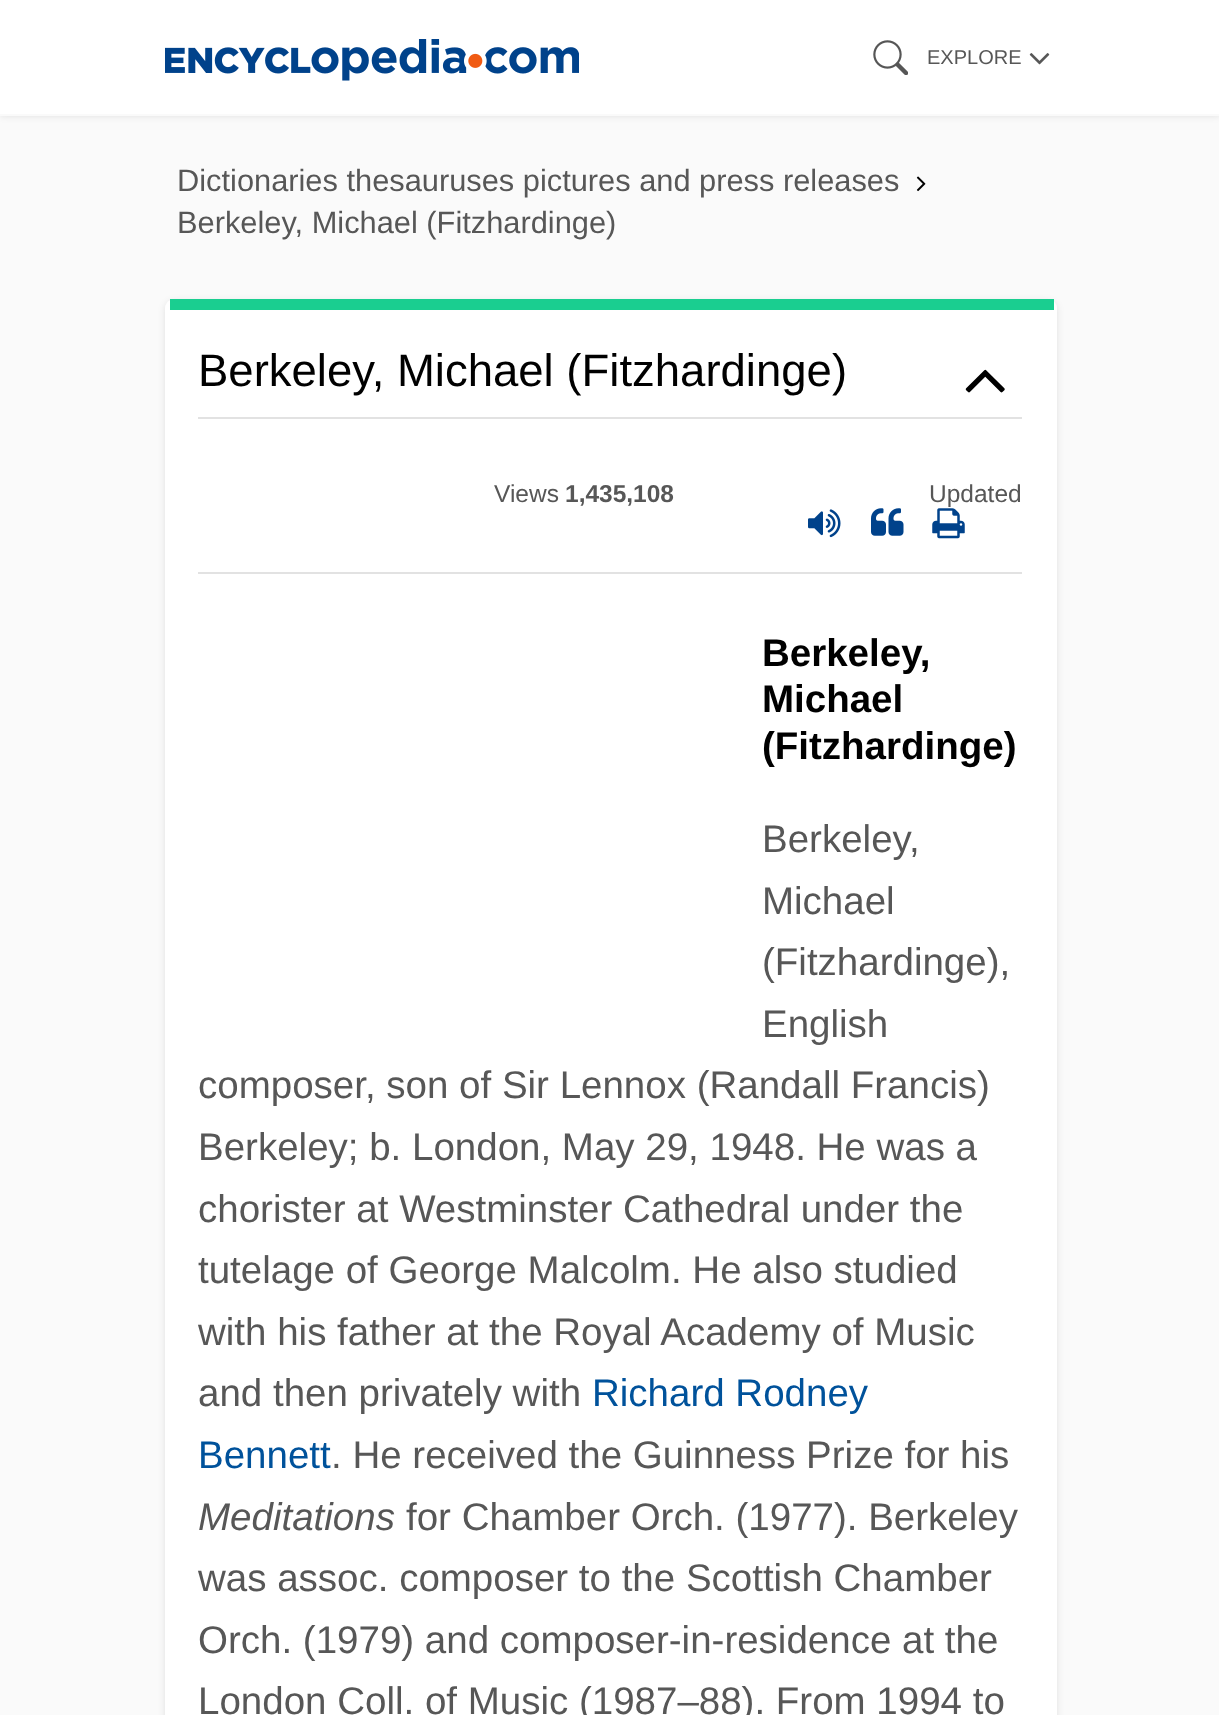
async function draw(canvas) {
  canvas.width = 1219
  canvas.height = 1715
  const ctx = canvas.getContext('2d')
  ctx.miterLimit = 4
  ctx.fontKerning = 'normal'
  async function loadImage(src) {
    const img = new Image()
    img.src = src
    await img.decode()
    return img
  }

  ctx.fillStyle = '#fafafa'
  ctx.fillRect(0, 0, 1219, 1715)
  ctx.fillStyle = '#0000001a'
  ctx.filter = 'blur(3.5px)'
  ctx.beginPath()
  ctx.rect(0, 0, 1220, 116)
  ctx.fill()
  ctx.filter = 'none'
  ctx.fillStyle = '#fff'
  ctx.fillRect(0, 0, 1219, 114)
  ctx.fillStyle = '#fafafa'
  ctx.fillRect(0, 114, 1219, 2)
  ctx.drawImage(await loadImage('image0.png'), 165, 39, 414, 42)
  ctx.drawImage(await loadImage('image1.png'), 873, 40, 35, 35)
  ctx.font = '20px Liberation Sans'
  ctx.fillStyle = '#575757'
  ctx.fillText('EXPLORE', 927, 64)
  ctx.drawImage(await loadImage('image2.png'), 1029, 53, 21, 12)
  ctx.font = '30.8px Liberation Sans'
  ctx.fillText('Dictionaries thesauruses pictures and press releases', 177, 191)
  ctx.drawImage(await loadImage('image3.png'), 916, 176, 10, 16)
  ctx.fillText('Berkeley, Michael (Fitzhardinge)', 177, 233)
  ctx.fillStyle = '#0000001a'
  ctx.filter = 'blur(3.5px)'
  ctx.beginPath()
  ctx.roundRect(165, 301, 892, 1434, 9)
  ctx.fill()
  ctx.filter = 'none'
  ctx.fillStyle = '#fff'
  ctx.beginPath()
  ctx.roundRect(165, 299, 892, 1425, 9)
  ctx.fill()
  ctx.fillStyle = '#1ace90'
  ctx.fillRect(170, 299, 884, 11)
  ctx.font = '45.5px Liberation Sans'
  ctx.fillStyle = '#000'
  ctx.fillText('Berkeley, Michael (Fitzhardinge)', 198, 386)
  ctx.drawImage(await loadImage('image4.png'), 965, 369, 40, 24)
  ctx.fillStyle = '#e2e2e2'
  ctx.fillRect(198, 417, 824, 2)
  ctx.fillRect(198, 572, 824, 2)
  ctx.font = '24.5px Liberation Sans'
  ctx.fillStyle = '#575757'
  ctx.fillText('Views', 494, 502)
  ctx.font = 'bold 24.5px Liberation Sans'
  ctx.fillText('1,435,108', 565, 502)
  ctx.font = '24.5px Liberation Sans'
  ctx.fillText('Updated', 929, 502)
  ctx.drawImage(await loadImage('image5.png'), 808, 509, 33, 29)
  ctx.drawImage(await loadImage('image6.png'), 871, 508, 33, 28)
  ctx.drawImage(await loadImage('image7.png'), 932, 508, 33, 31)
  ctx.font = 'bold 38.5px Liberation Sans'
  ctx.fillStyle = '#000'
  ctx.fillText('Berkeley,', 762, 666)
  ctx.fillText('Michael', 762, 712)
  ctx.fillText('(Fitzhardinge)', 762, 759)
  ctx.font = '38.5px Liberation Sans'
  ctx.fillStyle = '#575757'
  ctx.fillText('Berkeley,', 762, 852)
  ctx.fillText('Michael', 762, 914)
  ctx.fillText('(Fitzhardinge),', 762, 975)
  ctx.fillText('English', 762, 1037)
  ctx.fillText('composer, son of Sir Lennox (Randall Francis)', 198, 1098)
  ctx.fillText('Berkeley; b. London, May 29, 1948. He was a', 198, 1160)
  ctx.fillText('chorister at Westminster Cathedral under the', 198, 1222)
  ctx.fillText('tutelage of George Malcolm. He also studied', 198, 1283)
  ctx.fillText('with his father at the Royal Academy of Music', 198, 1345)
  ctx.fillText('and then privately with', 198, 1406)
  ctx.fillStyle = '#00529b'
  ctx.fillText('Richard Rodney', 592, 1406)
  ctx.fillText('Bennett', 198, 1468)
  ctx.fillStyle = '#575757'
  ctx.fillText('. He received the Guinness Prize for his', 331, 1468)
  ctx.font = 'italic 38.5px Liberation Sans'
  ctx.fillText('Meditations', 198, 1530)
  ctx.font = '38.5px Liberation Sans'
  ctx.fillText('for Chamber Orch. (1977). Berkeley', 406, 1530)
  ctx.fillText('was assoc. composer to the Scottish Chamber', 198, 1591)
  ctx.fillText('Orch. (1979) and composer-in-residence at the', 198, 1653)
  ctx.fillText('London Coll. of Music (1987–88). From 1994 to', 198, 1714)
}

draw(document.querySelector('canvas'))
